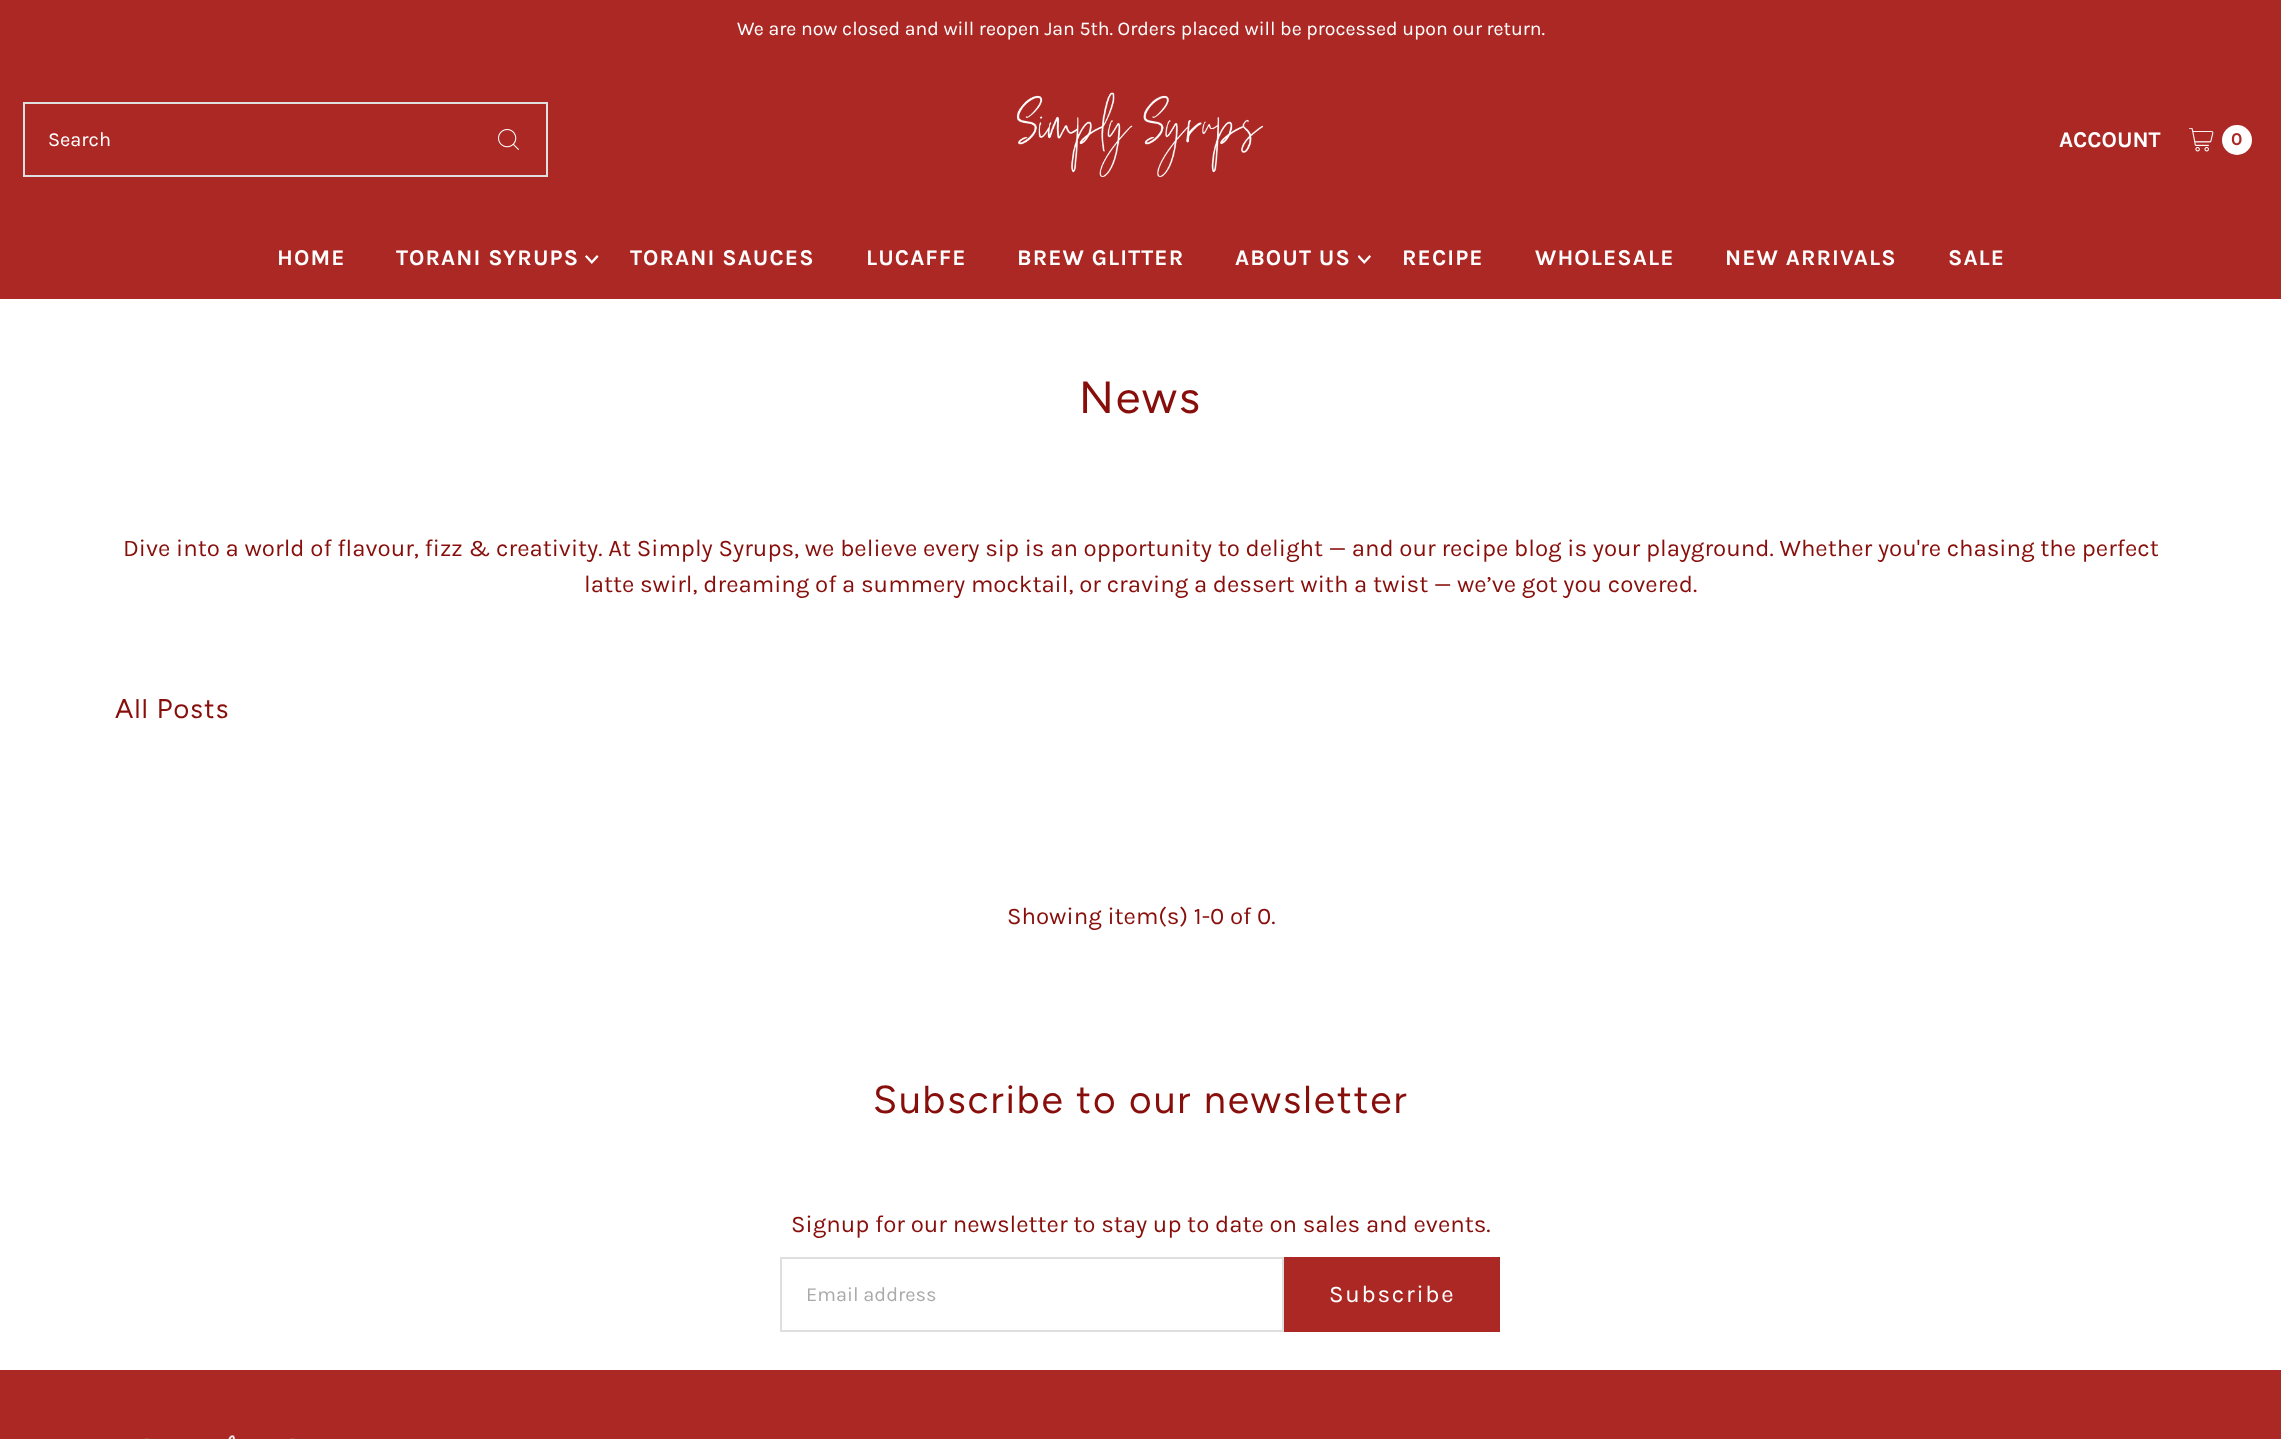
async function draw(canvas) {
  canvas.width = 2281
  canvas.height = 1439
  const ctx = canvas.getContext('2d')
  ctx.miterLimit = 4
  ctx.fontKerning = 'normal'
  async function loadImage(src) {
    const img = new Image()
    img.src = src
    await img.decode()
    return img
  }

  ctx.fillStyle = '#fff'
  ctx.fillRect(0, 0, 2281, 1439)
  ctx.fillStyle = '#ab2824'
  ctx.fillRect(0, 0, 2281, 299)
  ctx.font = '19.5px Karla'
  ctx.fillStyle = '#fff'
  ctx.fillText('We are now closed and will reopen Jan 5th. Orders placed will be processed upon our return.', 737, 35)
  ctx.strokeStyle = '#dfdfdf'
  ctx.lineWidth = 2
  ctx.strokeRect(24, 103, 523, 73)
  ctx.font = '20px Karla'
  ctx.fillText('Search', 48, 146)
  ctx.drawImage(await loadImage('image0.png'), 498, 129, 21, 21)
  ctx.drawImage(await loadImage('image1.png'), 1016, 92, 248, 86)
  ctx.font = 'bold 22.5px Karla'
  ctx.fillText('ACCOUNT', 2059, 147)
  ctx.drawImage(await loadImage('image2.png'), 2189, 128, 25, 24)
  ctx.beginPath()
  ctx.arc(2237, 140, 15, 0, 2 * Math.PI)
  ctx.fill()
  ctx.font = 'bold 18px Karla'
  ctx.fillStyle = '#ab2824'
  ctx.fillText('0', 2231, 145)
  ctx.letterSpacing = '1.1px'
  ctx.font = 'bold 22.5px Karla'
  ctx.fillStyle = '#fff'
  ctx.fillText('HOME', 277, 265)
  ctx.fillText('TORANI SYRUPS', 396, 265)
  ctx.drawImage(await loadImage('image3.png'), 585, 255, 14, 9)
  ctx.fillText('TORANI SAUCES', 630, 265)
  ctx.fillText('LUCAFFE', 866, 265)
  ctx.fillText('BREW GLITTER', 1017, 265)
  ctx.fillText('ABOUT US', 1235, 265)
  ctx.drawImage(await loadImage('image4.png'), 1358, 255, 13, 9)
  ctx.fillText('RECIPE', 1402, 265)
  ctx.fillText('WHOLESALE', 1535, 265)
  ctx.fillText('NEW ARRIVALS', 1725, 265)
  ctx.fillText('SALE', 1948, 265)
  ctx.letterSpacing = '2px'
  ctx.font = '45px Figtree'
  ctx.fillStyle = '#870e0a'
  ctx.fillText('News', 1079, 413)
  ctx.letterSpacing = '0px'
  ctx.font = '24px Karla'
  ctx.fillText('Dive into a world of flavour, fizz & creativity. At Simply Syrups, we believe every sip is an opportunity to delight — and our recipe blog is your playground. Whether you\'re chasing the perfect', 123, 556)
  ctx.fillText('latte swirl, dreaming of a summery mocktail, or craving a dessert with a twist — we’ve got you covered.', 584, 592)
  ctx.letterSpacing = '1.25px'
  ctx.font = '27px Figtree'
  ctx.fillText('All Posts', 115, 718)
  ctx.letterSpacing = '0px'
  ctx.font = '24px Karla'
  ctx.fillText('Showing item(s) 1-0 of 0.', 1007, 924)
  ctx.letterSpacing = '1.95px'
  ctx.font = '39px Figtree'
  ctx.fillText('Subscribe to our newsletter', 873, 1113)
  ctx.letterSpacing = '0px'
  ctx.font = '24px Karla'
  ctx.fillText('Signup for our newsletter to stay up to date on sales and events.', 791, 1232)
  ctx.strokeRect(781, 1258, 502, 73)
  ctx.font = '20px Karla'
  ctx.fillStyle = '#aaa'
  ctx.fillText('Email address', 806, 1301)
  ctx.fillStyle = '#ab2824'
  ctx.fillRect(1284, 1257, 216, 75)
  ctx.letterSpacing = '1.75px'
  ctx.font = '24px Karla'
  ctx.fillStyle = '#fff'
  ctx.fillText('Subscribe', 1329, 1302)
  ctx.fillStyle = '#ab2824'
  ctx.fillRect(0, 1370, 2281, 69)
  ctx.drawImage(await loadImage('image5.png'), 141, 1434, 160, 5)
}

draw(document.querySelector('canvas'))
